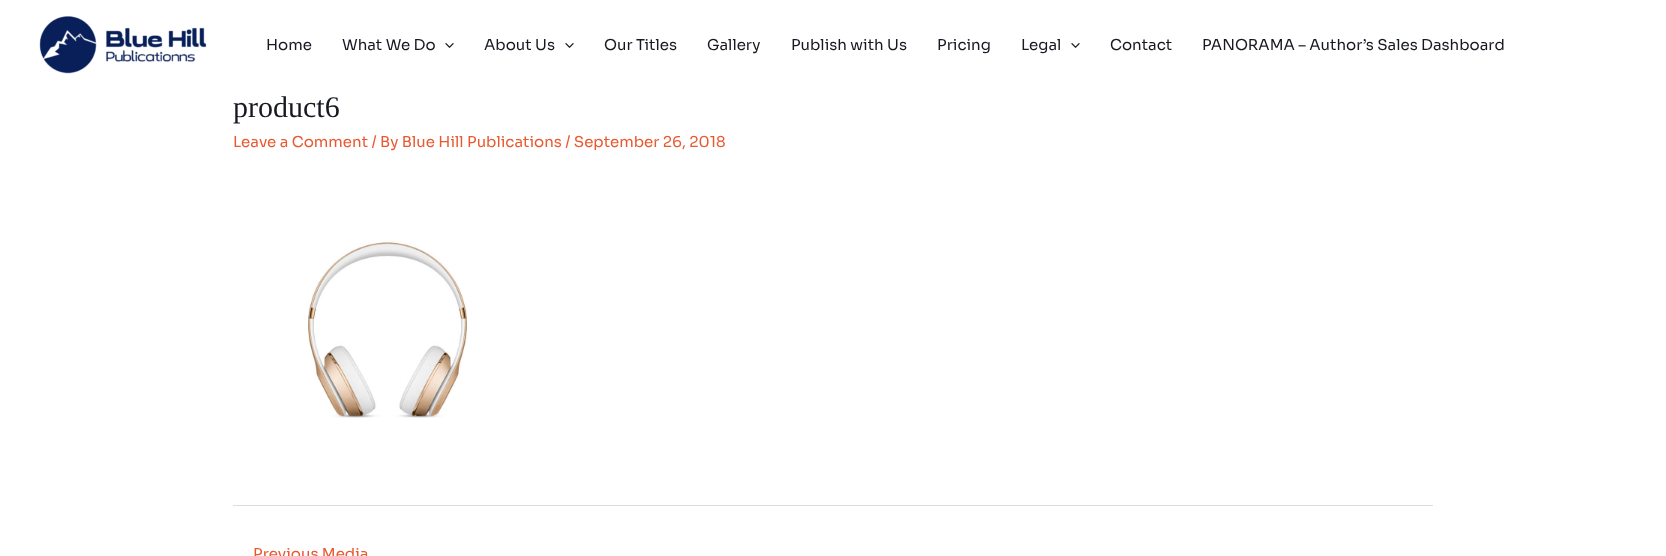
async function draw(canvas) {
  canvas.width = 1666
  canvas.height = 556
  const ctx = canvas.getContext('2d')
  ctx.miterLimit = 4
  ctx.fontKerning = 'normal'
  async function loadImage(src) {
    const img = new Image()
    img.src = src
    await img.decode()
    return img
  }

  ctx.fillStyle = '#fff'
  ctx.fillRect(0, 0, 1666, 556)
  ctx.drawImage(await loadImage('image0.png'), 39, 16, 168, 58)
  ctx.font = '15px Sora'
  ctx.fillStyle = '#171921'
  ctx.fillText('Home', 266, 50)
  ctx.fillText('What We Do', 342, 50)
  ctx.drawImage(await loadImage('image1.png'), 445, 43, 9, 5)
  ctx.fillText('About Us', 484, 50)
  ctx.drawImage(await loadImage('image1.png'), 565, 43, 9, 5)
  ctx.fillText('Our Titles', 604, 50)
  ctx.fillText('Gallery', 707, 50)
  ctx.fillText('Publish with Us', 791, 50)
  ctx.fillText('Pricing', 937, 50)
  ctx.fillText('Legal', 1021, 50)
  ctx.drawImage(await loadImage('image1.png'), 1071, 43, 9, 5)
  ctx.fillText('Contact', 1110, 50)
  ctx.fillText('PANORAMA – Author’s Sales Dashboard', 1202, 50)
  ctx.font = '30px Liberation Serif'
  ctx.fillText('product6', 233, 117)
  ctx.font = '15px Sora'
  ctx.fillStyle = '#e95930'
  ctx.fillText('Leave a Comment / By Blue Hill Publications / September 26, 2018', 233, 147)
  ctx.drawImage(await loadImage('image2.png'), 308, 240, 159, 178)
  ctx.fillStyle = '#ddd'
  ctx.fillRect(233, 505, 1200, 1)
  ctx.fillStyle = '#e95930'
  ctx.fillText('Previous Media', 253, 559)
}

draw(document.querySelector('canvas'))
